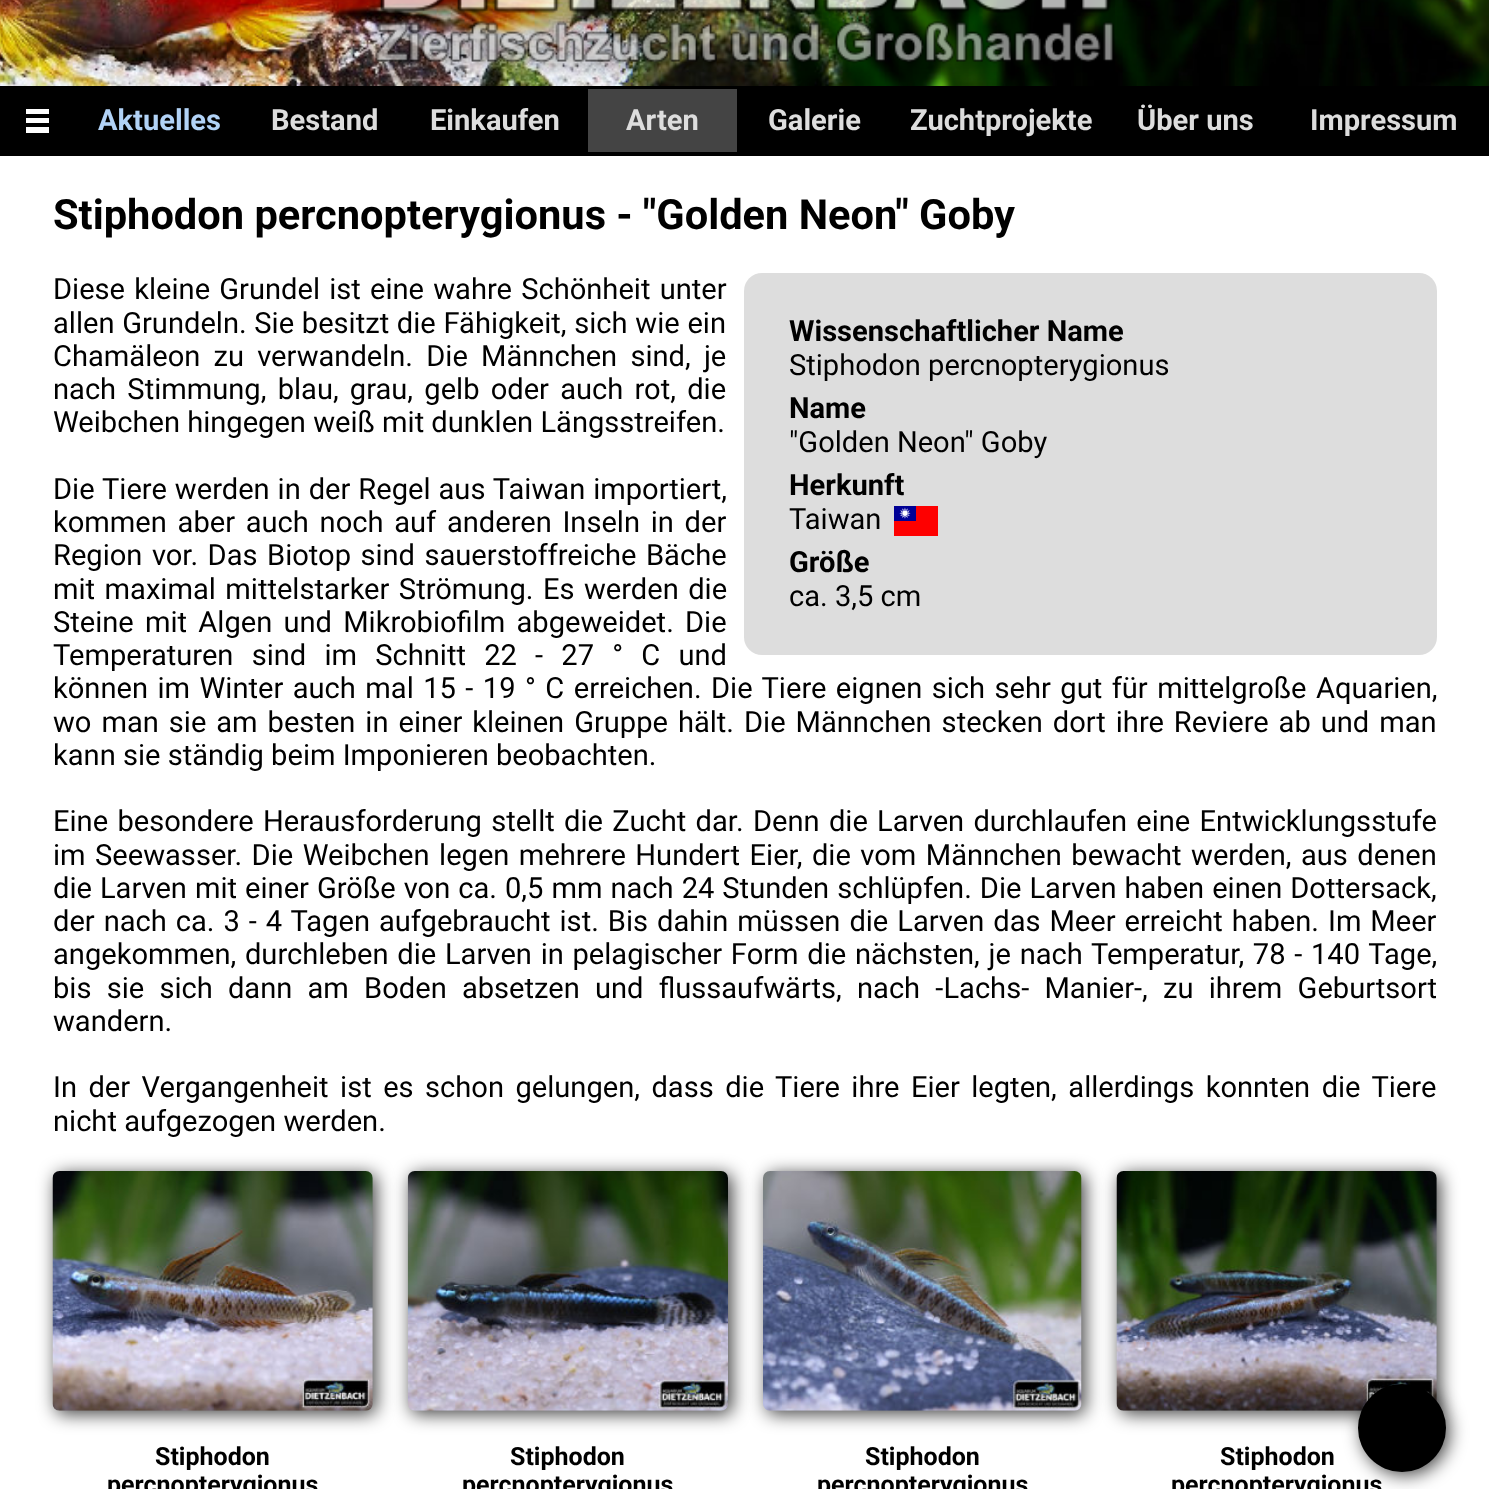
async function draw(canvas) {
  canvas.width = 1489
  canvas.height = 1489
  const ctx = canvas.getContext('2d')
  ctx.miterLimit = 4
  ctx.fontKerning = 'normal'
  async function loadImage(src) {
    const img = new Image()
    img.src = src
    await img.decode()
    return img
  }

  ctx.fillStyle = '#fff'
  ctx.fillRect(0, 0, 1489, 1489)
  ctx.drawImage(await loadImage('image0.png'), 0, 0, 1489, 86)
  ctx.drawImage(await loadImage('image1.png'), 369, 0, 746, 80)
  ctx.fillStyle = '#000'
  ctx.fillRect(0, 86, 1489, 70)
  ctx.fillStyle = '#fff'
  ctx.fillRect(26, 109, 23, 5)
  ctx.fillRect(26, 118, 23, 5)
  ctx.fillRect(26, 127, 23, 6)
  ctx.font = 'bold 29.1px Roboto'
  ctx.fillStyle = '#b1d2f6'
  ctx.fillText('Aktuelles', 98, 130)
  ctx.fillStyle = '#ddd'
  ctx.fillText('Bestand', 271, 130)
  ctx.fillText('Einkaufen', 430, 130)
  ctx.fillStyle = '#444'
  ctx.fillRect(588, 89, 149, 63)
  ctx.fillStyle = '#ddd'
  ctx.fillText('Arten', 626, 130)
  ctx.fillText('Galerie', 768, 130)
  ctx.fillText('Zuchtprojekte', 910, 130)
  ctx.fillText('Über uns', 1137, 130)
  ctx.fillText('Impressum', 1310, 130)
  ctx.font = 'bold 41.6px Roboto'
  ctx.fillStyle = '#000'
  ctx.fillText('Stiphodon percnopterygionus - "Golden Neon" Goby', 53, 229)
  ctx.wordSpacing = '2px'
  ctx.font = '29.1px Roboto'
  ctx.fillText('Diese kleine Grundel ist eine wahre Schönheit unter', 53, 299)
  ctx.wordSpacing = '0.5px'
  ctx.fillText('allen Grundeln. Sie besitzt die Fähigkeit, sich wie ein', 53, 333)
  ctx.wordSpacing = '6px'
  ctx.fillText('Chamäleon zu verwandeln. Die Männchen sind, je', 53, 366)
  ctx.wordSpacing = '4px'
  ctx.fillText('nach Stimmung, blau, grau, gelb oder auch rot, die', 53, 399)
  ctx.wordSpacing = '0px'
  ctx.fillText('Weibchen hingegen weiß mit dunklen Längsstreifen.', 53, 432)
  ctx.fillStyle = '#ddd'
  ctx.beginPath()
  ctx.roundRect(744, 273, 693, 382, 18)
  ctx.fill()
  ctx.font = 'bold 29.1px Roboto'
  ctx.fillStyle = '#000'
  ctx.fillText('Wissenschaftlicher Name', 789, 341)
  ctx.font = '29.1px Roboto'
  ctx.fillText('Stiphodon percnopterygionus', 789, 375)
  ctx.font = 'bold 29.1px Roboto'
  ctx.fillText('Name', 789, 418)
  ctx.font = '29.1px Roboto'
  ctx.fillText('"Golden Neon" Goby', 789, 452)
  ctx.font = 'bold 29.1px Roboto'
  ctx.fillText('Herkunft', 789, 495)
  ctx.font = '29.1px Roboto'
  ctx.fillText('Taiwan', 789, 529)
  ctx.drawImage(await loadImage('image2.png'), 894, 506, 44, 30)
  ctx.font = 'bold 29.1px Roboto'
  ctx.fillText('Größe', 789, 572)
  ctx.font = '29.1px Roboto'
  ctx.fillText('ca. 3,5 cm', 789, 606)
  ctx.wordSpacing = '0.75px'
  ctx.fillText('Die Tiere werden in der Regel aus Taiwan importiert,', 53, 499)
  ctx.wordSpacing = '3.5px'
  ctx.fillText('kommen aber auch noch auf anderen Inseln in der', 53, 532)
  ctx.wordSpacing = '2.25px'
  ctx.fillText('Region vor. Das Biotop sind sauerstoffreiche Bäche', 53, 565)
  ctx.fillText('mit maximal mittelstarker Strömung. Es werden die', 53, 599)
  ctx.wordSpacing = '4px'
  ctx.fillText('Steine mit Algen und Mikrobiofilm abgeweidet. Die', 53, 632)
  ctx.wordSpacing = '11px'
  ctx.fillText('Temperaturen sind im Schnitt 22 - 27 ° C und', 53, 665)
  ctx.wordSpacing = '2.25px'
  ctx.fillText('können im Winter auch mal 15 - 19 ° C erreichen. Die Tiere eignen sich sehr gut für mittelgroße Aquarien,', 53, 698)
  ctx.wordSpacing = '2.75px'
  ctx.fillText('wo man sie am besten in einer kleinen Gruppe hält. Die Männchen stecken dort ihre Reviere ab und man', 53, 732)
  ctx.wordSpacing = '0px'
  ctx.fillText('kann sie ständig beim Imponieren beobachten.', 53, 765)
  ctx.wordSpacing = '2.1px'
  ctx.fillText('Eine besondere Herausforderung stellt die Zucht dar. Denn die Larven durchlaufen eine Entwicklungsstufe', 53, 831)
  ctx.wordSpacing = '2.25px'
  ctx.fillText('im Seewasser. Die Weibchen legen mehrere Hundert Eier, die vom Männchen bewacht werden, aus denen', 53, 865)
  ctx.wordSpacing = '0.8px'
  ctx.fillText('die Larven mit einer Größe von ca. 0,5 mm nach 24 Stunden schlüpfen. Die Larven haben einen Dottersack,', 53, 898)
  ctx.wordSpacing = '1.75px'
  ctx.fillText('der nach ca. 3 - 4 Tagen aufgebraucht ist. Bis dahin müssen die Larven das Meer erreicht haben. Im Meer', 53, 931)
  ctx.wordSpacing = '1.5px'
  ctx.fillText('angekommen, durchleben die Larven in pelagischer Form die nächsten, je nach Temperatur, 78 - 140 Tage,', 53, 964)
  ctx.wordSpacing = '8px'
  ctx.fillText('bis sie sich dann am Boden absetzen und flussaufwärts, nach -Lachs- Manier-, zu ihrem Geburtsort', 53, 998)
  ctx.wordSpacing = '0px'
  ctx.fillText('wandern.', 53, 1031)
  ctx.wordSpacing = '4.25px'
  ctx.fillText('In der Vergangenheit ist es schon gelungen, dass die Tiere ihre Eier legten, allerdings konnten die Tiere', 53, 1097)
  ctx.wordSpacing = '0px'
  ctx.fillText('nicht aufgezogen werden.', 53, 1131)
  ctx.fillStyle = '#000000bf'
  ctx.filter = 'blur(9px)'
  ctx.beginPath()
  ctx.roundRect(56, 1174, 320, 240, 7)
  ctx.fill()
  ctx.filter = 'none'
  ctx.drawImage(await loadImage('image3.png'), 52, 1171, 321, 240)
  ctx.font = 'bold 25px Roboto'
  ctx.fillStyle = '#000'
  ctx.fillText('Stiphodon', 155, 1465)
  ctx.fillText('percnopterygionus', 107, 1493)
  ctx.fillStyle = '#000000bf'
  ctx.filter = 'blur(9px)'
  ctx.beginPath()
  ctx.roundRect(411, 1174, 321, 240, 7)
  ctx.fill()
  ctx.filter = 'none'
  ctx.drawImage(await loadImage('image4.png'), 407, 1171, 321, 240)
  ctx.fillStyle = '#000'
  ctx.fillText('Stiphodon', 510, 1465)
  ctx.fillText('percnopterygionus', 462, 1493)
  ctx.fillStyle = '#000000bf'
  ctx.filter = 'blur(9px)'
  ctx.beginPath()
  ctx.roundRect(767, 1174, 318, 240, 7)
  ctx.fill()
  ctx.filter = 'none'
  ctx.drawImage(await loadImage('image5.png'), 763, 1171, 319, 240)
  ctx.fillStyle = '#000'
  ctx.fillText('Stiphodon', 865, 1465)
  ctx.fillText('percnopterygionus', 817, 1493)
  ctx.fillStyle = '#000000bf'
  ctx.filter = 'blur(9px)'
  ctx.beginPath()
  ctx.roundRect(1120, 1174, 320, 240, 7)
  ctx.fill()
  ctx.filter = 'none'
  ctx.drawImage(await loadImage('image6.png'), 1116, 1171, 321, 240)
  ctx.fillStyle = '#000'
  ctx.fillText('Stiphodon', 1220, 1465)
  ctx.fillText('percnopterygionus', 1171, 1493)
  ctx.fillStyle = '#000000bf'
  ctx.filter = 'blur(9px)'
  ctx.beginPath()
  ctx.roundRect(1362, 1388, 87, 87, 43.5)
  ctx.fill()
  ctx.filter = 'none'
  ctx.fillStyle = '#000'
  ctx.beginPath()
  ctx.arc(1402, 1428, 44, 0, 2 * Math.PI)
  ctx.fill()
}

draw(document.querySelector('canvas'))
